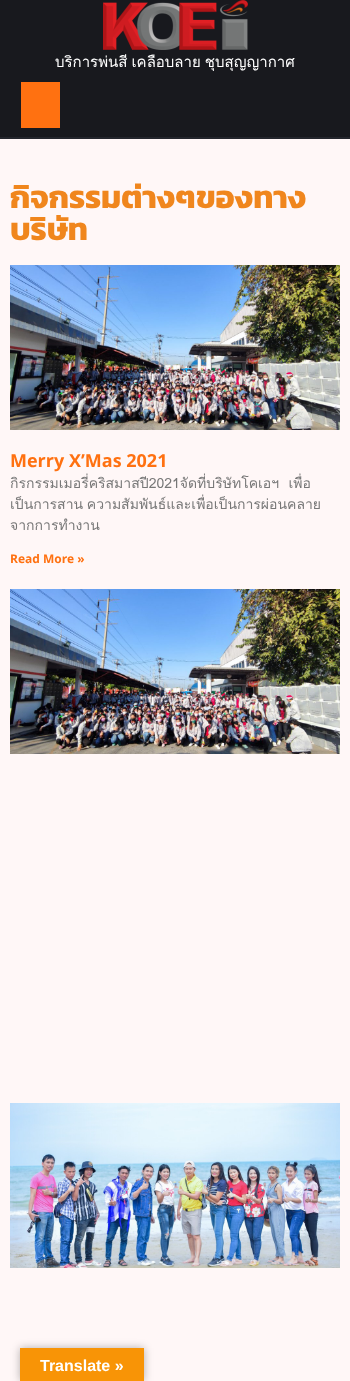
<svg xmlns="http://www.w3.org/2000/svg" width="350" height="1381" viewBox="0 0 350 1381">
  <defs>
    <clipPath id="clip1"><rect x="10" y="265" width="330" height="304"/></clipPath>
    <filter id="blur1" x="-50%" y="-200%" width="200%" height="500%"><feGaussianBlur stdDeviation="4.5"/></filter>
  </defs>
  <rect width="100%" height="100%" fill="#fff7f7"/>
  <rect x="0" y="0" width="350" height="137" fill="#18191e"/>
  <rect x="0" y="137" width="350" height="2" fill="#24262d"/>
  <image x="103" y="0" width="145" height="50" href="img1.png"/>
  <text x="55" y="67" word-spacing="-1" font-family="Loma" font-size="15" fill="#ffffff">บริการพ่นสี เคลือบลาย ชุบสุญญากาศ</text>
  <rect x="21" y="82" width="39" height="46" fill="#ff7111"/>
  <text x="10" y="208" font-family="Kanit" font-size="32" font-weight="bold" fill="#f0861d">กิจกรรมต่างๆของทาง</text>
  <text x="10" y="240" font-family="Kanit" font-size="32" font-weight="bold" fill="#f0861d">บริษัท</text>
  <image x="10" y="265" width="330" height="165" href="img2.png"/>
  <text x="10" y="467" font-family="Noto Sans" font-size="18" font-weight="bold" fill="#ff7111">Merry X’Mas 2021</text>
  <g clip-path="url(#clip1)">
    <text x="10" y="488" font-family="Loma" font-size="14" fill="#777777" xml:space="preserve">กิรกรรมเมอรี่คริสมาสปี2021จัดที่บริษัทโคเอฯ  เพื่อ</text>
    <text x="10" y="509" word-spacing="-1" font-family="Loma" font-size="14" fill="#777777">เป็นการสาน ความสัมพันธ์และเพื่อเป็นการผ่อนคลาย</text>
  </g>
  <text x="10" y="530" font-family="Loma" font-size="14" fill="#777777">จากการทำงาน</text>
  <text x="10" y="563" font-family="Noto Sans" font-size="12" font-weight="bold" fill="#ff7111">Read More »</text>
  <image x="10" y="589" width="330" height="165" href="img3.png"/>
  <image x="10" y="1103" width="330" height="165" href="img4.png"/>
  <rect x="20" y="1348" width="124" height="33" fill="#000000" fill-opacity="0.3" filter="url(#blur1)"/>
  <rect x="20" y="1348" width="124" height="33" fill="#f89406"/>
  <text x="40" y="1371" font-family="Liberation Sans" font-size="16" font-weight="bold" fill="#ffffff">Translate »</text>
</svg>
